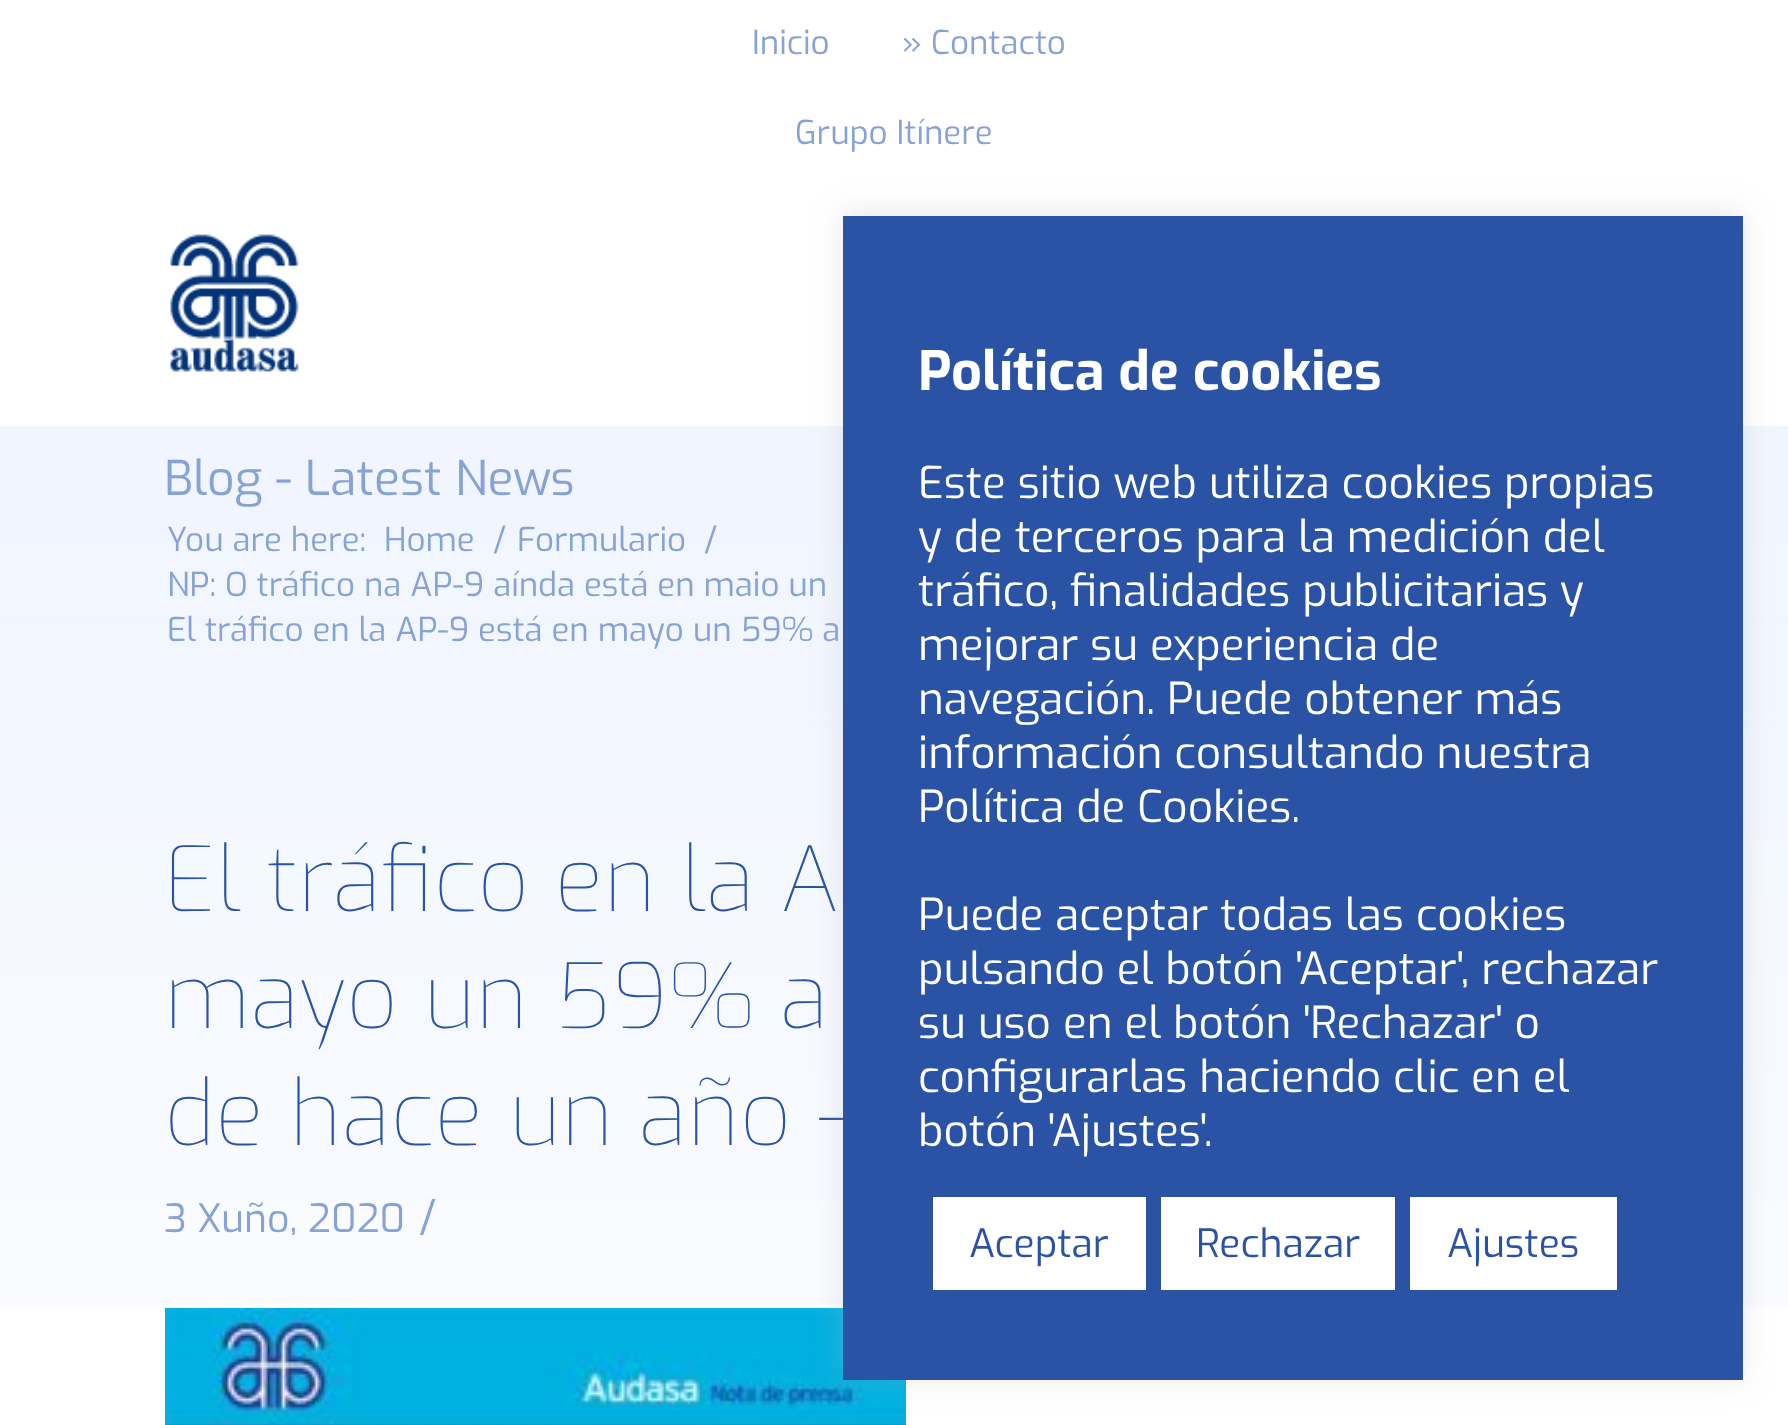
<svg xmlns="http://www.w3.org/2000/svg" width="1788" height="1425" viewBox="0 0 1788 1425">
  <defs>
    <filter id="blur1" x="-50%" y="-200%" width="200%" height="500%"><feGaussianBlur stdDeviation="15"/></filter>
  </defs>
  <rect width="100%" height="100%" fill="#ffffff"/>
  <text x="752" y="54" font-family="Exo" font-size="33" fill="#87a2d4">Inicio</text>
  <text x="902" y="54" font-family="Exo" font-size="33" fill="#87a2d4">» Contacto</text>
  <text x="795" y="144" font-family="Exo" font-size="33" fill="#87a2d4">Grupo Itínere</text>
  <image x="170" y="234" width="129" height="138" href="img1.png"/>
  <image x="0" y="426" width="1788" height="879" href="img2.png"/>
  <text x="164" y="495" font-family="Exo" font-size="48" fill="#87a2d4">Blog - Latest News</text>
  <text x="167" y="551" font-family="Exo" font-size="33" fill="#87a2d4">You are here:</text>
  <text x="384" y="551" font-family="Exo" font-size="33" fill="#87a2d4">Home</text>
  <text x="493" y="551" font-family="Exo" font-size="33" fill="#87a2d4">/</text>
  <text x="517" y="551" font-family="Exo" font-size="33" fill="#87a2d4">Formulario</text>
  <text x="704" y="551" font-family="Exo" font-size="33" fill="#87a2d4">/</text>
  <text x="167" y="596" font-family="Exo" font-size="33" fill="#87a2d4">NP: O tráfico na AP-9 aínda está en maio un</text>
  <text x="167" y="641" font-family="Exo" font-size="33" fill="#87a2d4">El tráfico en la AP-9 está en mayo un 59% a</text>
  <text x="164" y="911" font-family="Exo" font-size="90" font-weight="100" fill="#2a53a5">El tráfico en la A</text>
  <text x="164" y="1028" font-family="Exo" font-size="90" font-weight="100" fill="#2a53a5">mayo un 59% a</text>
  <text x="164" y="1145" font-family="Exo" font-size="90" font-weight="100" fill="#2a53a5">de hace un año –</text>
  <text x="164" y="1232" font-family="Exo" font-size="39" fill="#87a2d4">3 Xuño, 2020</text>
  <text x="419" y="1232" font-family="Exo" font-size="43" fill="#87a2d4">/</text>
  <image x="165" y="1308" width="741" height="117" href="img3.png"/>
  <rect x="843" y="213" width="900" height="1164" fill="#acabab" fill-opacity="0.3" filter="url(#blur1)"/>
  <rect x="843" y="216" width="900" height="1164" fill="#2a53a5"/>
  <text x="918" y="390" font-family="Exo" font-size="54" font-weight="bold" fill="#ffffff">Política de cookies</text>
  <text x="918" y="498" font-family="Exo" font-size="44" fill="#ffffff">Este sitio web utiliza cookies propias</text>
  <text x="918" y="552" font-family="Exo" font-size="44" fill="#ffffff">y de terceros para la medición del</text>
  <text x="918" y="606" font-family="Exo" font-size="44" fill="#ffffff">tráfico, finalidades publicitarias y</text>
  <text x="918" y="660" font-family="Exo" font-size="44" fill="#ffffff">mejorar su experiencia de</text>
  <text x="918" y="714" font-family="Exo" font-size="44" fill="#ffffff">navegación. Puede obtener más</text>
  <text x="918" y="768" font-family="Exo" font-size="44" fill="#ffffff">información consultando nuestra</text>
  <text x="918" y="822" font-family="Exo" font-size="44" fill="#ffffff">Política de Cookies.</text>
  <text x="918" y="930" font-family="Exo" font-size="44" fill="#ffffff">Puede aceptar todas las cookies</text>
  <text x="918" y="984" font-family="Exo" font-size="44" fill="#ffffff">pulsando el botón 'Aceptar', rechazar</text>
  <text x="918" y="1038" font-family="Exo" font-size="44" fill="#ffffff">su uso en el botón 'Rechazar' o</text>
  <text x="918" y="1092" font-family="Exo" font-size="44" fill="#ffffff">configurarlas haciendo clic en el</text>
  <text x="918" y="1146" font-family="Exo" font-size="44" fill="#ffffff">botón 'Ajustes'.</text>
  <rect x="933" y="1197" width="213" height="93" fill="#ffffff"/>
  <text x="969" y="1257" font-family="Exo" font-size="39" fill="#2a53a5">Aceptar</text>
  <rect x="1161" y="1197" width="234" height="93" fill="#ffffff"/>
  <text x="1196" y="1257" font-family="Exo" font-size="39" fill="#2a53a5">Rechazar</text>
  <rect x="1410" y="1197" width="207" height="93" fill="#ffffff"/>
  <text x="1447" y="1257" font-family="Exo" font-size="39" fill="#2a53a5">Ajustes</text>
</svg>
